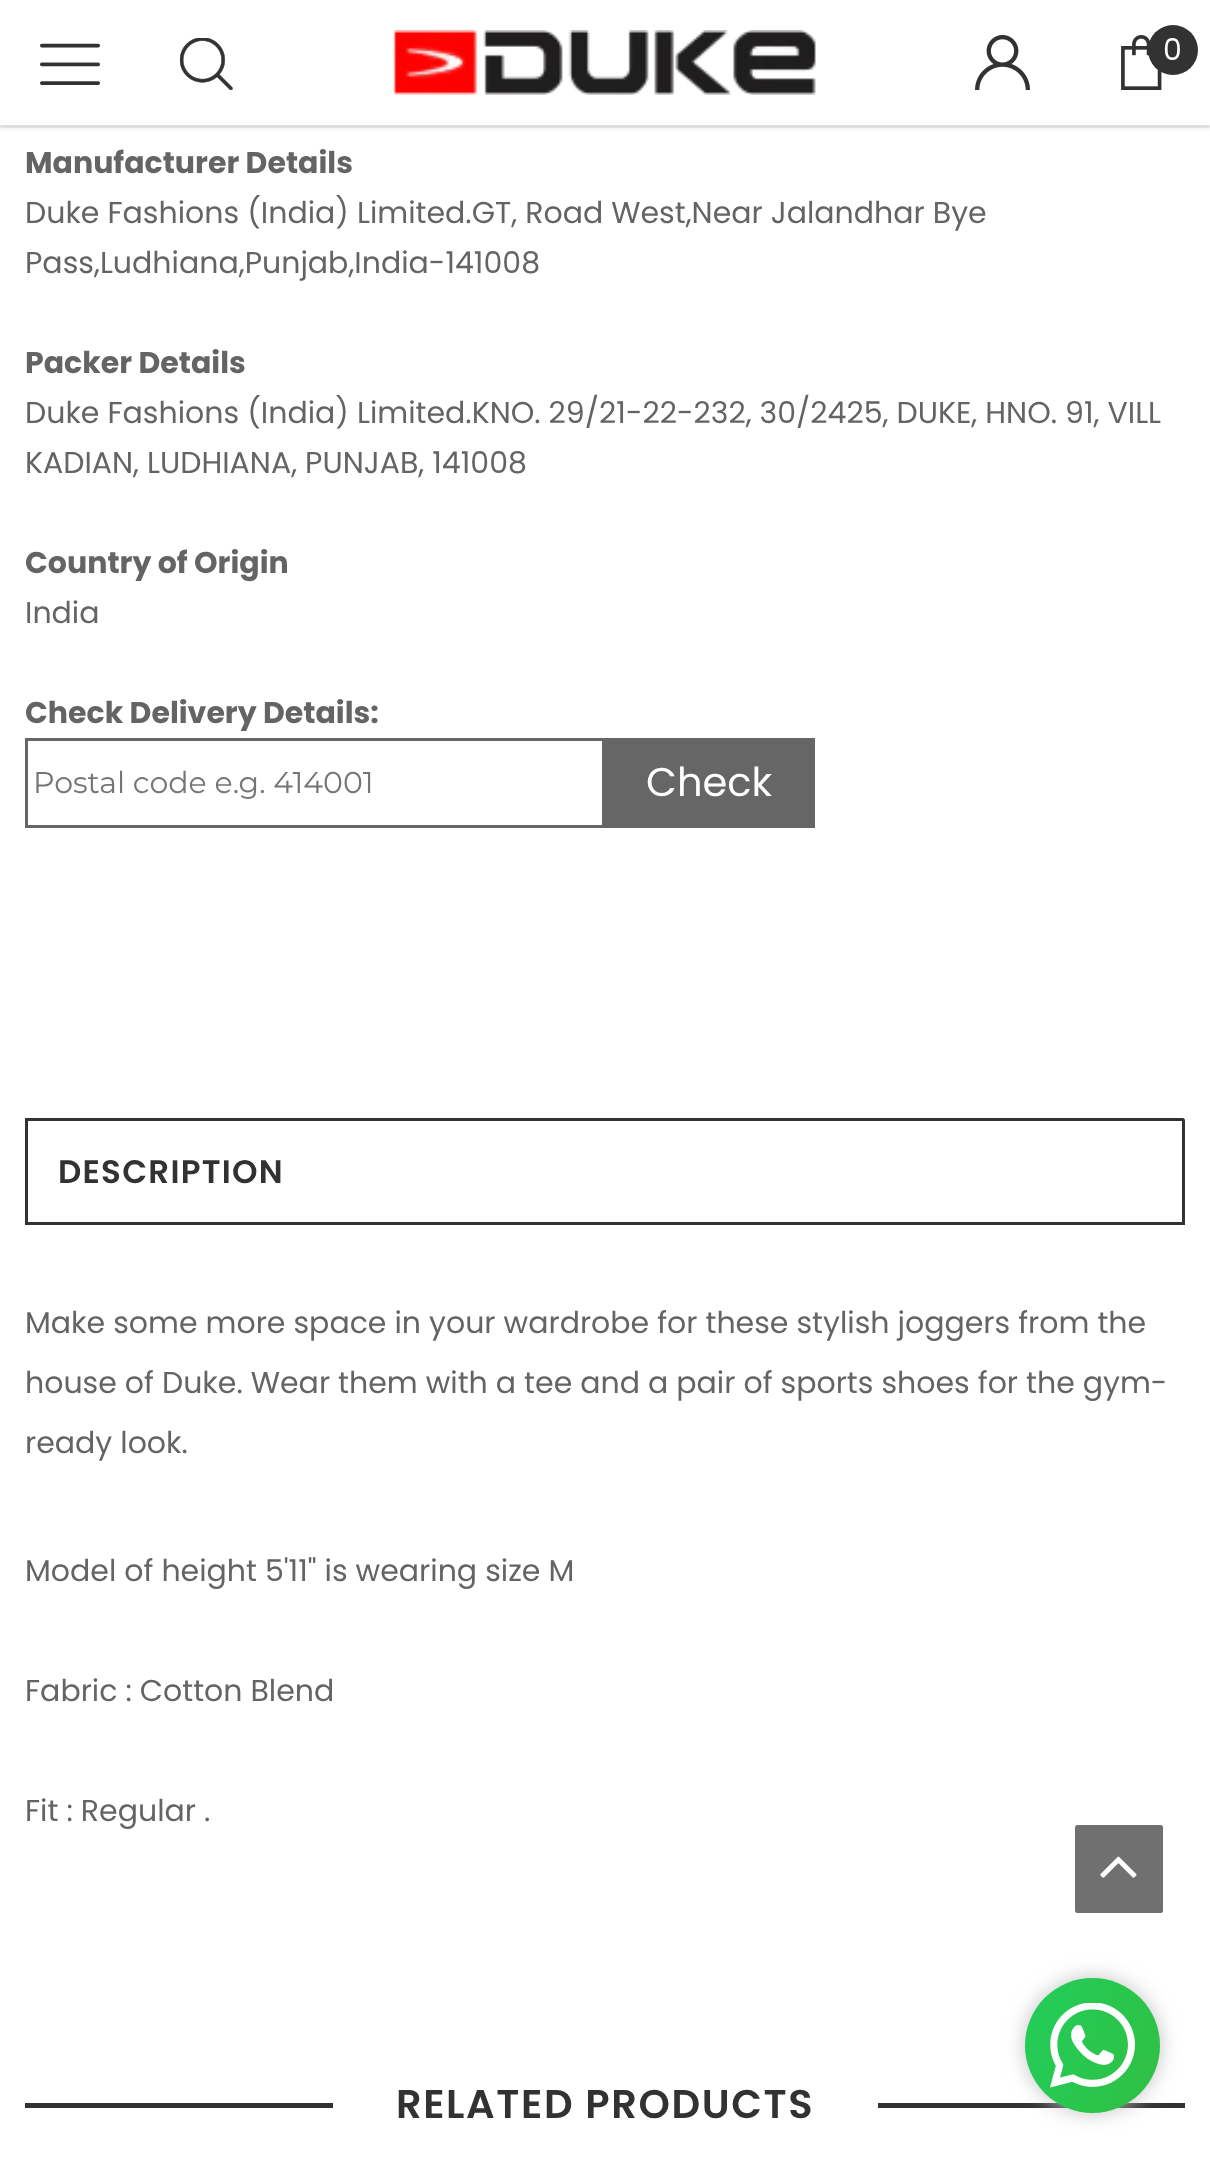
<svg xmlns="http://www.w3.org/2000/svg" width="1210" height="2161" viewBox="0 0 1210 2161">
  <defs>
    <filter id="blur1" x="-50%" y="-200%" width="200%" height="500%"><feGaussianBlur stdDeviation="2.5"/></filter>
    <filter id="blur2" x="-50%" y="-200%" width="200%" height="500%"><feGaussianBlur stdDeviation="10"/></filter>
    <linearGradient id="g1" gradientUnits="userSpaceOnUse" x1="1011" y1="2011" x2="1174" y2="2079"><stop offset="0" stop-color="#22ce5a"/><stop offset="0" stop-color="#22ce5a"/><stop offset="1" stop-color="#30bf42"/></linearGradient>
  </defs>
  <rect width="100%" height="100%" fill="#ffffff"/>
  <rect x="0" y="3" width="1210" height="125" fill="#000000" fill-opacity="0.1" filter="url(#blur1)"/>
  <rect x="-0.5" y="-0.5" width="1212" height="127" fill="none" stroke="#000000" stroke-opacity="0.06" stroke-width="3"/>
  <rect x="0" y="0" width="1210" height="125" fill="#ffffff"/>
  <image x="40" y="43" width="60" height="42" href="img1.png"/>
  <image x="180" y="38" width="53" height="52" href="img2.png"/>
  <image x="392" y="30" width="424" height="65" href="img3.png"/>
  <image x="975" y="35" width="55" height="55" href="img4.png"/>
  <image x="1121" y="35" width="41" height="55" href="img5.png"/>
  <circle cx="1173" cy="50" r="25" fill="#323232"/>
  <text x="1163" y="60" font-family="Poppins" font-size="30" fill="#ffffff">0</text>
  <text x="25" y="173" font-family="Poppins" font-size="30" font-weight="bold" fill="#646464">Manufacturer Details</text>
  <text x="25" y="223" font-family="Poppins" font-size="30" fill="#646464">Duke Fashions (India) Limited.GT, Road West,Near Jalandhar Bye</text>
  <text x="25" y="273" font-family="Poppins" font-size="30" fill="#646464">Pass,Ludhiana,Punjab,India-141008</text>
  <text x="25" y="373" font-family="Poppins" font-size="30" font-weight="bold" fill="#646464">Packer Details</text>
  <text x="25" y="423" font-family="Poppins" font-size="30" fill="#646464">Duke Fashions (India) Limited.KNO. 29/21-22-232, 30/2425, DUKE, HNO. 91, VILL</text>
  <text x="25" y="473" font-family="Poppins" font-size="30" fill="#646464">KADIAN, LUDHIANA, PUNJAB, 141008</text>
  <text x="25" y="573" font-family="Poppins" font-size="30" font-weight="bold" fill="#646464">Country of Origin</text>
  <text x="25" y="623" font-family="Poppins" font-size="30" fill="#646464">India</text>
  <text x="25" y="723" font-family="Poppins" font-size="30" font-weight="bold" fill="#646464">Check Delivery Details:</text>
  <rect x="26.5" y="739.5" width="577" height="87" fill="none" stroke="#666666" stroke-width="3"/>
  <text x="33" y="793" font-family="Montserrat" font-size="30" fill="#757575">Postal code e.g. 414001</text>
  <rect x="605" y="738" width="210" height="90" fill="#666666"/>
  <text x="646" y="796" font-family="Poppins" font-size="40" fill="#ffffff">Check</text>
  <path d="M26.5 1119.5H1182.5C1183 1119.5 1183.5 1120 1183.5 1120.5V1223.5H26.5Z" fill="none" stroke="#323232" stroke-width="3"/>
  <text x="58" y="1183" font-family="Poppins" font-size="32.5" font-weight="600" letter-spacing="1.25" fill="#323232">DESCRIPTION</text>
  <text x="25" y="1333" font-family="Poppins" font-size="30" fill="#646464">Make some more space in your wardrobe for these stylish joggers from the</text>
  <text x="25" y="1393" font-family="Poppins" font-size="30" fill="#646464">house of Duke. Wear them with a tee and a pair of sports shoes for the gym-</text>
  <text x="25" y="1453" font-family="Poppins" font-size="30" fill="#646464">ready look.</text>
  <text x="25" y="1581" font-family="Poppins" font-size="30" fill="#646464">Model of height 5'11" is wearing size M</text>
  <text x="25" y="1701" font-family="Poppins" font-size="30" fill="#646464">Fabric : Cotton Blend</text>
  <text x="25" y="1821" font-family="Poppins" font-size="30" fill="#646464">Fit : Regular .</text>
  <rect x="25" y="2103" width="308" height="5" fill="#323232"/>
  <text x="396" y="2118" font-family="Poppins" font-size="40" font-weight="600" letter-spacing="1.6" fill="#323232">RELATED PRODUCTS</text>
  <rect x="878" y="2103" width="307" height="5" fill="#323232"/>
  <rect x="1075" y="1825" width="88" height="88" rx="2.5" fill="#707070"/>
  <image x="1100" y="1856" width="37" height="22" href="img6.png"/>
  <rect x="1025" y="1978" width="135" height="135" rx="67.5" fill="#c2c2c2" filter="url(#blur2)"/>
  <circle cx="1092.5" cy="2045.5" r="67.5" fill="url(#g1)"/>
  <image x="1050" y="2003" width="85" height="85" href="img7.png"/>
</svg>
